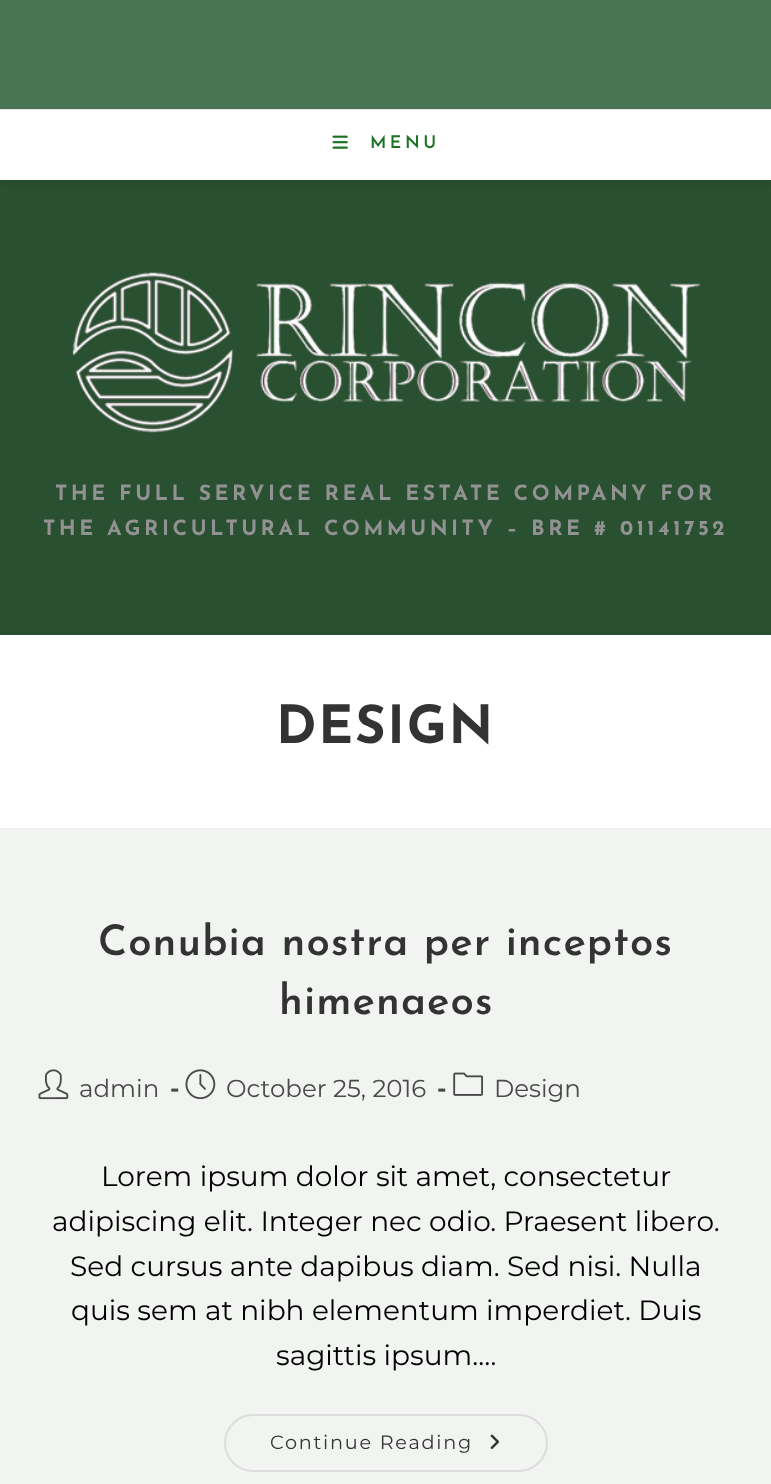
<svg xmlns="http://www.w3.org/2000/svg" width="771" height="1484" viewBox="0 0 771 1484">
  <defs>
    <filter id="blur1" x="-50%" y="-200%" width="200%" height="500%"><feGaussianBlur stdDeviation="4.5"/></filter>
  </defs>
  <rect width="100%" height="100%" fill="#f1f4f1"/>
  <rect x="0" y="0" width="771" height="109" fill="#497554"/>
  <rect x="0" y="109" width="771" height="1" fill="#eeeeee"/>
  <rect x="0" y="180" width="771" height="455" fill="#295030"/>
  <rect x="0" y="112" width="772" height="70" fill="#000000" fill-opacity="0.1" filter="url(#blur1)"/>
  <rect x="0" y="110" width="771" height="70" fill="#ffffff"/>
  <image x="332" y="135" width="16" height="14" href="img1.png"/>
  <text x="370" y="148" font-family="Josefin Sans" font-size="17.5" font-weight="600" letter-spacing="3.5" fill="#1c7223">MENU</text>
  <image x="72" y="272" width="629" height="161" href="img2.png"/>
  <text x="55" y="500" font-family="Josefin Sans" font-size="21" font-weight="bold" letter-spacing="3.5" fill="#929292">THE FULL SERVICE REAL ESTATE COMPANY FOR</text>
  <text x="43" y="535" font-family="Josefin Sans" font-size="21" font-weight="bold" letter-spacing="3.5" fill="#929292">THE AGRICULTURAL COMMUNITY – BRE # 01141752</text>
  <rect x="0" y="635" width="771" height="193" fill="#ffffff"/>
  <rect x="0" y="828" width="771" height="2" fill="#eeeeee"/>
  <text x="276" y="743" font-family="Josefin Sans" font-size="52.5" font-weight="bold" letter-spacing="1.75" fill="#333333">DESIGN</text>
  <text x="98" y="955" font-family="Josefin Sans" font-size="42" font-weight="600" letter-spacing="1.05" fill="#333333">Conubia nostra per inceptos</text>
  <text x="279" y="1014" font-family="Josefin Sans" font-size="42" font-weight="600" letter-spacing="1.05" fill="#333333">himenaeos</text>
  <image x="38" y="1069" width="31" height="31" href="img3.png"/>
  <text x="79" y="1097" font-family="Montserrat" font-size="24.5" fill="#4a4a4a">admin</text>
  <text x="170" y="1097" font-family="Montserrat" font-size="24.5" font-weight="bold" fill="#4a4a4a">-</text>
  <image x="185" y="1069" width="31" height="31" href="img4.png"/>
  <text x="226" y="1097" font-family="Montserrat" font-size="24.5" fill="#4a4a4a">October 25, 2016</text>
  <text x="437" y="1097" font-family="Montserrat" font-size="24.5" font-weight="bold" fill="#4a4a4a">-</text>
  <image x="453" y="1072" width="30" height="24" href="img5.png"/>
  <text x="494" y="1097" font-family="Montserrat" font-size="24.5" fill="#4a4a4a">Design</text>
  <text x="101" y="1186" font-family="Montserrat" font-size="28" fill="#000000">Lorem ipsum dolor sit amet, consectetur</text>
  <text x="52" y="1231" font-family="Montserrat" font-size="28" fill="#000000">adipiscing elit. Integer nec odio. Praesent libero.</text>
  <text x="70" y="1276" font-family="Montserrat" font-size="28" fill="#000000">Sed cursus ante dapibus diam. Sed nisi. Nulla</text>
  <text x="71" y="1320" font-family="Montserrat" font-size="28" fill="#000000">quis sem at nibh elementum imperdiet. Duis</text>
  <text x="276" y="1365" font-family="Montserrat" font-size="28" fill="#000000">sagittis ipsum.…</text>
  <rect x="225" y="1415" width="322" height="56" rx="28" fill="none" stroke="#dddddd" stroke-width="2"/>
  <text x="270" y="1449" font-family="Montserrat" font-size="19.25" letter-spacing="1.75" fill="#333333">Continue Reading</text>
  <image x="490" y="1434" width="10" height="15" href="img6.png"/>
</svg>
